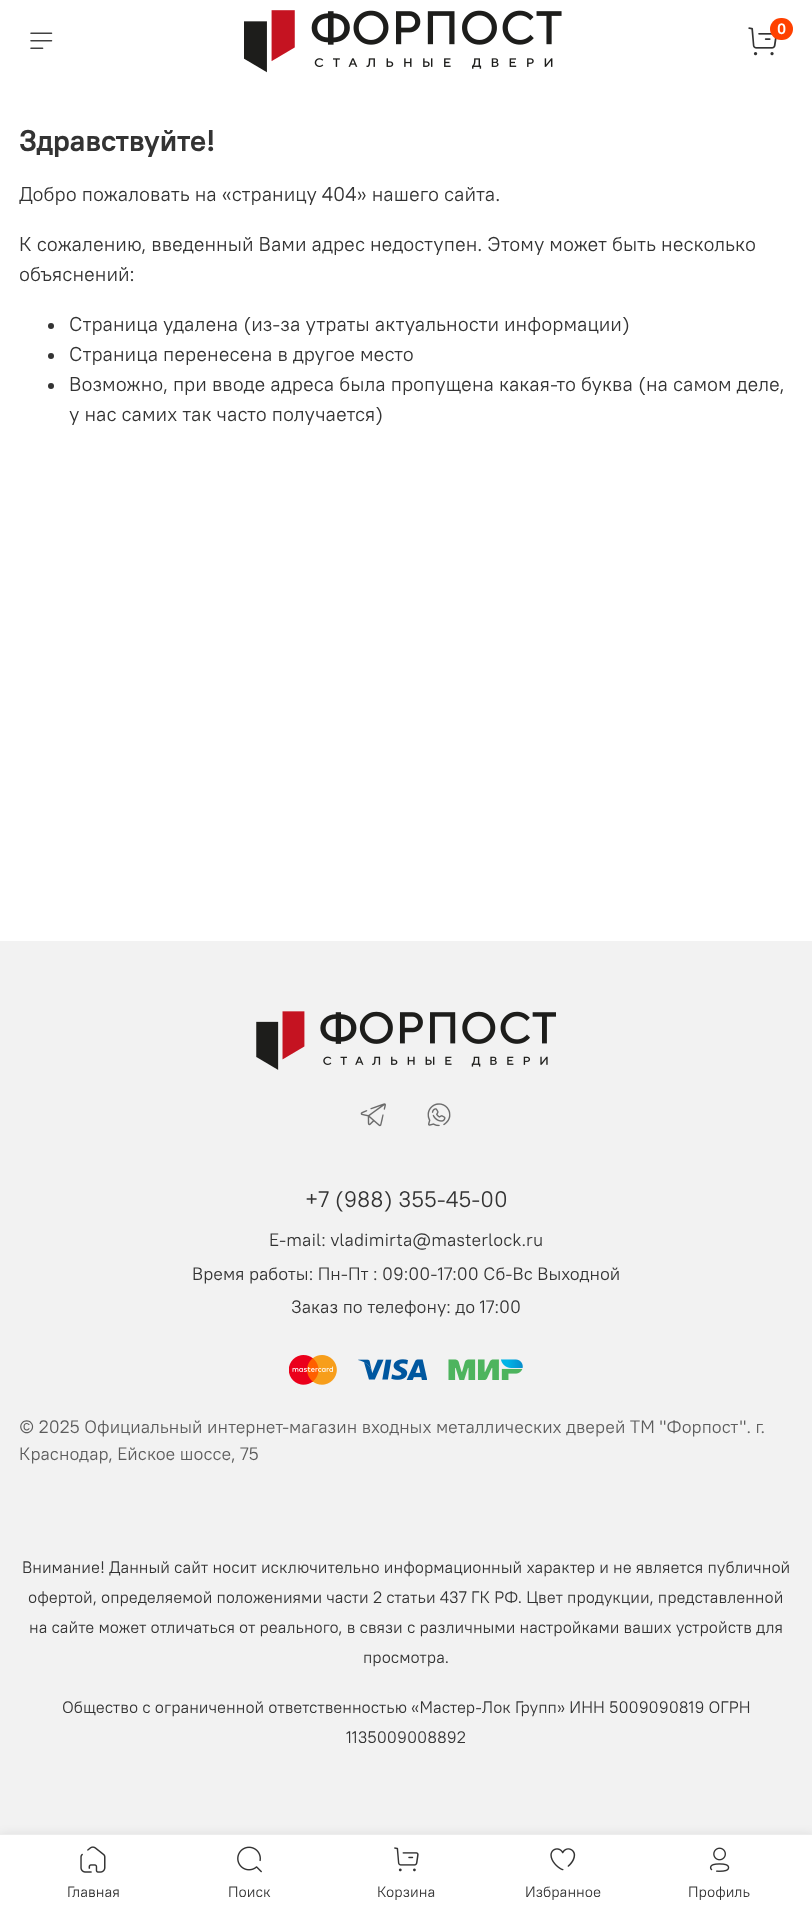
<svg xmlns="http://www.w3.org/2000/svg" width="812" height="1911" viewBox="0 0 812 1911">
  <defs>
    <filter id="blur1" x="-50%" y="-200%" width="200%" height="500%"><feGaussianBlur stdDeviation="6"/></filter>
  </defs>
  <rect width="100%" height="100%" fill="#ffffff"/>
  <image x="244" y="10" width="318" height="63" href="img1.png"/>
  <image x="748" y="27" width="29" height="29" href="img2.png"/>
  <rect x="770" y="18" width="23" height="22" rx="11" fill="#ff4100"/>
  <text x="777" y="34" font-family="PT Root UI" font-size="15" font-weight="bold" fill="#ffffff">0</text>
  <image x="30" y="32" width="23" height="17" href="img3.png"/>
  <text x="19" y="151" font-family="PT Root UI" font-size="30" font-weight="bold" fill="#333333">Здравствуйте!</text>
  <text x="19" y="201" font-family="PT Root UI" font-size="20" fill="#333333">Добро пожаловать на «страницу 404» нашего сайта.</text>
  <text x="19" y="251" font-family="PT Root UI" font-size="20" fill="#333333">К сожалению, введенный Вами адрес недоступен. Этому может быть несколько</text>
  <text x="19" y="281" font-family="PT Root UI" font-size="20" fill="#333333">объяснений:</text>
  <circle cx="51" cy="326" r="3" fill="#333333"/>
  <text x="69" y="331" font-family="PT Root UI" font-size="20" fill="#333333">Страница удалена (из-за утраты актуальности информации)</text>
  <circle cx="51" cy="356" r="3" fill="#333333"/>
  <text x="69" y="361" font-family="PT Root UI" font-size="20" fill="#333333">Страница перенесена в другое место</text>
  <circle cx="51" cy="386" r="3" fill="#333333"/>
  <text x="69" y="391" font-family="PT Root UI" font-size="20" fill="#333333">Возможно, при вводе адреса была пропущена какая-то буква (на самом деле,</text>
  <text x="69" y="421" font-family="PT Root UI" font-size="20" fill="#333333">у нас самих так часто получается)</text>
  <rect x="0" y="941" width="812" height="893" fill="#f2f2f2"/>
  <image x="256" y="1011" width="300" height="59" href="img4.png"/>
  <image x="360" y="1103" width="26" height="24" href="img5.png"/>
  <image x="427" y="1103" width="24" height="24" href="img6.png"/>
  <text x="305" y="1207" font-family="PT Root UI" font-size="22.5" fill="#333333">+7 (988) 355-45-00</text>
  <text x="269" y="1246" font-family="PT Root UI" font-size="18" fill="#333333">E-mail: vladimirta@masterlock.ru</text>
  <text x="192" y="1280" font-family="PT Root UI" font-size="18" fill="#333333">Время работы: Пн-Пт : 09:00-17:00 Сб-Вс Выходной</text>
  <text x="291" y="1313" font-family="PT Root UI" font-size="18" fill="#333333">Заказ по телефону: до 17:00</text>
  <image x="289" y="1355" width="48" height="30" href="img7.png"/>
  <image x="358" y="1359" width="69" height="21" href="img8.png"/>
  <image x="448" y="1359" width="75" height="21" href="img9.png"/>
  <text x="19" y="1433" font-family="PT Root UI" font-size="18" fill="#5c5c5c">© 2025 Официальный интернет-магазин входных металлических дверей ТМ "Форпост". г.</text>
  <text x="19" y="1460" font-family="PT Root UI" font-size="18" fill="#5c5c5c">Краснодар, Ейское шоссе, 75</text>
  <text x="22" y="1573" font-family="PT Root UI" font-size="16.65" fill="#333333">Внимание! Данный сайт носит исключительно информационный характер и не является публичной</text>
  <text x="28" y="1603" font-family="PT Root UI" font-size="16.65" fill="#333333">офертой, определяемой положениями части 2 статьи 437 ГК РФ. Цвет продукции, представленной</text>
  <text x="29" y="1633" font-family="PT Root UI" font-size="16.65" fill="#333333">на сайте может отличаться от реального, в связи с различными настройками ваших устройств для</text>
  <text x="363" y="1663" font-family="PT Root UI" font-size="16.65" fill="#333333">просмотра.</text>
  <text x="62" y="1713" font-family="PT Root UI" font-size="16.65" fill="#333333">Общество с ограниченной ответственностью «Мастер-Лок Групп» ИНН 5009090819 ОГРН</text>
  <text x="346" y="1743" font-family="PT Root UI" font-size="16.65" fill="#333333">1135009008892</text>
  <rect x="0" y="1836" width="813" height="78" fill="#000000" fill-opacity="0.12" filter="url(#blur1)"/>
  <rect x="0" y="1835" width="812" height="76" fill="#ffffff"/>
  <rect x="0" y="1834" width="812" height="1" fill="#ededed"/>
  <image x="80" y="1846" width="26" height="27" href="img10.png"/>
  <text x="67" y="1897" font-family="PT Root UI" font-size="15" fill="#333333">Главная</text>
  <image x="237" y="1846" width="25" height="27" href="img11.png"/>
  <text x="228" y="1897" font-family="PT Root UI" font-size="15" fill="#333333">Поиск</text>
  <image x="394" y="1847" width="25" height="25" href="img12.png"/>
  <text x="377" y="1897" font-family="PT Root UI" font-size="15" fill="#333333">Корзина</text>
  <image x="550" y="1848" width="26" height="23" href="img13.png"/>
  <text x="525" y="1897" font-family="PT Root UI" font-size="15" fill="#333333">Избранное</text>
  <image x="709" y="1847" width="21" height="25" href="img14.png"/>
  <text x="688" y="1897" font-family="PT Root UI" font-size="15" fill="#333333">Профиль</text>
</svg>
